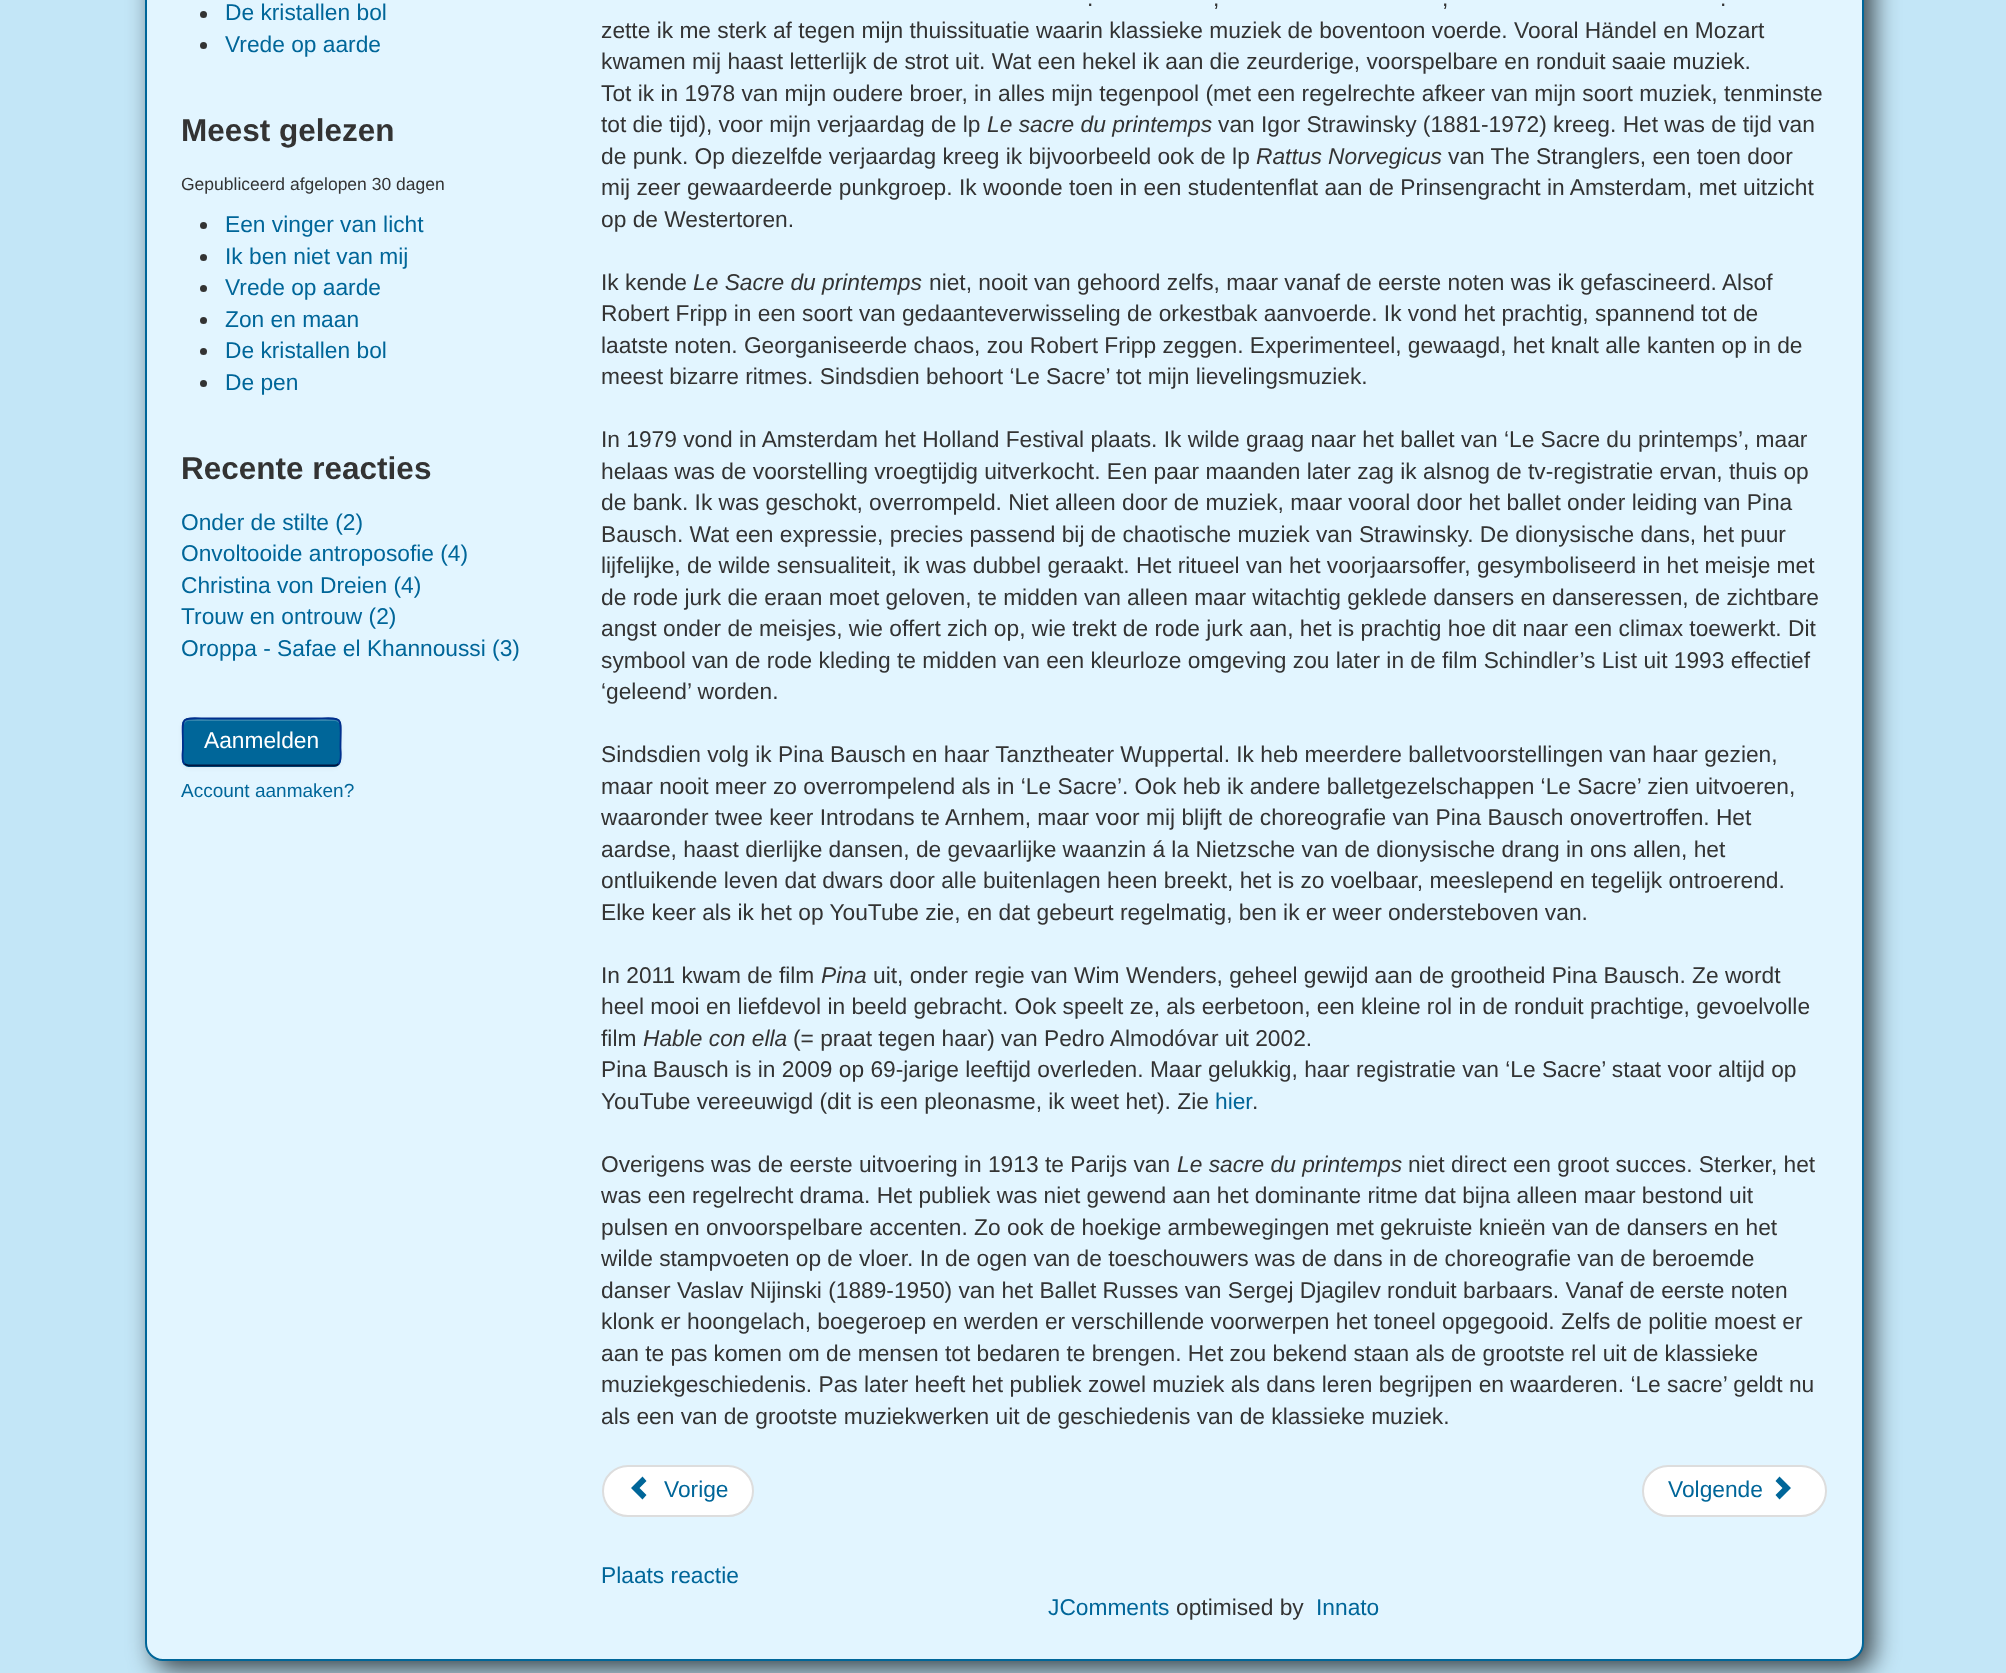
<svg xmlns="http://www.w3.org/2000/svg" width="2006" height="1673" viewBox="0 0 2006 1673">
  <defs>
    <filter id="blur1" x="-50%" y="-200%" width="200%" height="500%"><feGaussianBlur stdDeviation="13"/></filter>
    <filter id="blur2" x="-50%" y="-200%" width="200%" height="500%"><feGaussianBlur stdDeviation="2"/></filter>
  </defs>
  <rect width="100%" height="100%" fill="#c3e6f7"/>
  <rect x="154" y="-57" width="1719" height="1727" rx="18" fill="#000000" fill-opacity="0.7" filter="url(#blur1)"/>
  <rect x="146" y="-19" width="1717" height="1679" rx="17" fill="#e2f5ff" stroke="#006699" stroke-width="2"/>
  <circle cx="203.5" cy="14.5" r="3.5" fill="#333333"/>
  <text x="225" y="20" font-family="Liberation Sans" font-size="22.75" fill="#006699">De kristallen bol</text>
  <circle cx="203.5" cy="45.5" r="3.5" fill="#333333"/>
  <text x="225" y="52" font-family="Liberation Sans" font-size="22.75" fill="#006699">Vrede op aarde</text>
  <text x="181" y="141" font-family="Liberation Sans" font-size="31.5" font-weight="bold" fill="#333333">Meest gelezen</text>
  <text x="181" y="190" font-family="Liberation Sans" font-size="17.5" fill="#333333">Gepubliceerd afgelopen 30 dagen</text>
  <circle cx="203.5" cy="225.5" r="3.5" fill="#333333"/>
  <text x="225" y="232" font-family="Liberation Sans" font-size="22.75" fill="#006699">Een vinger van licht</text>
  <circle cx="203.5" cy="257.5" r="3.5" fill="#333333"/>
  <text x="225" y="264" font-family="Liberation Sans" font-size="22.75" fill="#006699">Ik ben niet van mij</text>
  <circle cx="203.5" cy="288.5" r="3.5" fill="#333333"/>
  <text x="225" y="295" font-family="Liberation Sans" font-size="22.75" fill="#006699">Vrede op aarde</text>
  <circle cx="203.5" cy="320.5" r="3.5" fill="#333333"/>
  <text x="225" y="327" font-family="Liberation Sans" font-size="22.75" fill="#006699">Zon en maan</text>
  <circle cx="203.5" cy="351.5" r="3.5" fill="#333333"/>
  <text x="225" y="358" font-family="Liberation Sans" font-size="22.75" fill="#006699">De kristallen bol</text>
  <circle cx="203.5" cy="383.5" r="3.5" fill="#333333"/>
  <text x="225" y="390" font-family="Liberation Sans" font-size="22.75" fill="#006699">De pen</text>
  <text x="181" y="479" font-family="Liberation Sans" font-size="31.5" font-weight="bold" fill="#333333">Recente reacties</text>
  <text x="181" y="530" font-family="Liberation Sans" font-size="22.75" fill="#006699">Onder de stilte (2)</text>
  <text x="181" y="561" font-family="Liberation Sans" font-size="22.75" fill="#006699">Onvoltooide antroposofie (4)</text>
  <text x="181" y="593" font-family="Liberation Sans" font-size="22.75" fill="#006699">Christina von Dreien (4)</text>
  <text x="181" y="624" font-family="Liberation Sans" font-size="22.75" fill="#006699">Trouw en ontrouw (2)</text>
  <text x="181" y="656" font-family="Liberation Sans" font-size="22.75" fill="#006699">Oroppa - Safae el Khannoussi (3)</text>
  <rect x="182" y="719" width="159" height="49" rx="7" fill="#000000" fill-opacity="0.05" filter="url(#blur2)"/>
  <rect x="182" y="718" width="159" height="49" rx="7" fill="#006699"/>
  <path d="M189 721H334C337 721 340 723 340 726V724C340 721 338 719 335 719H189C186 719 184 721 184 724V726C184 723 186 721 189 721Z" fill="#3385ad"/>
  <path d="M338.5 764C337.5 765 336.5 765.5 335 765.5H188.5L184.5 764" fill="none" stroke="#001641" stroke-width="1.8"/>
  <path d="M184.5 764C181 760.5 183 751.5 183 748C183 713.5 177 718.5 213 718.5H310C346 718.5 340.5 713.5 340.5 748C340.5 751.5 342 760.5 338.5 764" fill="none" stroke="#002f8d" stroke-width="1.8"/>
  <text x="204" y="748" font-family="Liberation Sans" font-size="22.75" fill="#ffffff">Aanmelden</text>
  <text x="181" y="797" font-family="Liberation Sans" font-size="19" fill="#006699">Account aanmaken?</text>
  <text x="1087" y="6" font-family="Liberation Sans" font-size="22.75" fill="#333333">.</text>
  <text x="1213" y="6" font-family="Liberation Sans" font-size="22.75" fill="#333333">,</text>
  <text x="1442" y="6" font-family="Liberation Sans" font-size="22.75" fill="#333333">,</text>
  <text x="1720" y="6" font-family="Liberation Sans" font-size="22.75" fill="#333333">.</text>
  <text x="601" y="38" font-family="Liberation Sans" font-size="22.75" fill="#333333">zette ik me sterk af tegen mijn thuissituatie waarin klassieke muziek de boventoon voerde. Vooral Händel en Mozart</text>
  <text x="601" y="69" font-family="Liberation Sans" font-size="22.75" fill="#333333">kwamen mij haast letterlijk de strot uit. Wat een hekel ik aan die zeurderige, voorspelbare en ronduit saaie muziek.</text>
  <text x="601" y="101" font-family="Liberation Sans" font-size="22.75" fill="#333333">Tot ik in 1978 van mijn oudere broer, in alles mijn tegenpool (met een regelrechte afkeer van mijn soort muziek, tenminste</text>
  <text x="601" y="132" font-family="Liberation Sans" font-size="22.75" fill="#333333">tot die tijd), voor mijn verjaardag de lp</text>
  <text x="987" y="132" font-family="Liberation Sans" font-size="22.75" font-style="italic" fill="#333333">Le sacre du printemps</text>
  <text x="1218" y="132" font-family="Liberation Sans" font-size="22.75" fill="#333333">van Igor Strawinsky (1881-1972) kreeg. Het was de tijd van</text>
  <text x="601" y="164" font-family="Liberation Sans" font-size="22.75" fill="#333333">de punk. Op diezelfde verjaardag kreeg ik bijvoorbeeld ook de lp</text>
  <text x="1256" y="164" font-family="Liberation Sans" font-size="22.75" font-style="italic" fill="#333333">Rattus Norvegicus</text>
  <text x="1448" y="164" font-family="Liberation Sans" font-size="22.75" fill="#333333">van The Stranglers, een toen door</text>
  <text x="601" y="195" font-family="Liberation Sans" font-size="22.75" fill="#333333">mij zeer gewaardeerde punkgroep. Ik woonde toen in een studentenflat aan de Prinsengracht in Amsterdam, met uitzicht</text>
  <text x="601" y="227" font-family="Liberation Sans" font-size="22.75" fill="#333333">op de Westertoren.</text>
  <text x="601" y="290" font-family="Liberation Sans" font-size="22.75" fill="#333333">Ik kende</text>
  <text x="693" y="290" font-family="Liberation Sans" font-size="22.75" font-style="italic" fill="#333333">Le Sacre du printemps</text>
  <text x="929" y="290" font-family="Liberation Sans" font-size="22.75" fill="#333333">niet, nooit van gehoord zelfs, maar vanaf de eerste noten was ik gefascineerd. Alsof</text>
  <text x="601" y="321" font-family="Liberation Sans" font-size="22.75" fill="#333333">Robert Fripp in een soort van gedaanteverwisseling de orkestbak aanvoerde. Ik vond het prachtig, spannend tot de</text>
  <text x="601" y="353" font-family="Liberation Sans" font-size="22.75" fill="#333333">laatste noten. Georganiseerde chaos, zou Robert Fripp zeggen. Experimenteel, gewaagd, het knalt alle kanten op in de</text>
  <text x="601" y="384" font-family="Liberation Sans" font-size="22.75" fill="#333333">meest bizarre ritmes. Sindsdien behoort ‘Le Sacre’ tot mijn lievelingsmuziek.</text>
  <text x="601" y="447" font-family="Liberation Sans" font-size="22.75" fill="#333333">In 1979 vond in Amsterdam het Holland Festival plaats. Ik wilde graag naar het ballet van ‘Le Sacre du printemps’, maar</text>
  <text x="601" y="479" font-family="Liberation Sans" font-size="22.75" fill="#333333">helaas was de voorstelling vroegtijdig uitverkocht. Een paar maanden later zag ik alsnog de tv-registratie ervan, thuis op</text>
  <text x="601" y="510" font-family="Liberation Sans" font-size="22.75" fill="#333333">de bank. Ik was geschokt, overrompeld. Niet alleen door de muziek, maar vooral door het ballet onder leiding van Pina</text>
  <text x="601" y="542" font-family="Liberation Sans" font-size="22.75" fill="#333333">Bausch. Wat een expressie, precies passend bij de chaotische muziek van Strawinsky. De dionysische dans, het puur</text>
  <text x="601" y="573" font-family="Liberation Sans" font-size="22.75" fill="#333333">lijfelijke, de wilde sensualiteit, ik was dubbel geraakt. Het ritueel van het voorjaarsoffer, gesymboliseerd in het meisje met</text>
  <text x="601" y="605" font-family="Liberation Sans" font-size="22.75" fill="#333333">de rode jurk die eraan moet geloven, te midden van alleen maar witachtig geklede dansers en danseressen, de zichtbare</text>
  <text x="601" y="636" font-family="Liberation Sans" font-size="22.75" fill="#333333">angst onder de meisjes, wie offert zich op, wie trekt de rode jurk aan, het is prachtig hoe dit naar een climax toewerkt. Dit</text>
  <text x="601" y="668" font-family="Liberation Sans" font-size="22.75" fill="#333333">symbool van de rode kleding te midden van een kleurloze omgeving zou later in de film Schindler’s List uit 1993 effectief</text>
  <text x="601" y="699" font-family="Liberation Sans" font-size="22.75" fill="#333333">‘geleend’ worden.</text>
  <text x="601" y="762" font-family="Liberation Sans" font-size="22.75" fill="#333333">Sindsdien volg ik Pina Bausch en haar Tanztheater Wuppertal. Ik heb meerdere balletvoorstellingen van haar gezien,</text>
  <text x="601" y="794" font-family="Liberation Sans" font-size="22.75" fill="#333333">maar nooit meer zo overrompelend als in ‘Le Sacre’. Ook heb ik andere balletgezelschappen ‘Le Sacre’ zien uitvoeren,</text>
  <text x="601" y="825" font-family="Liberation Sans" font-size="22.75" fill="#333333">waaronder twee keer Introdans te Arnhem, maar voor mij blijft de choreografie van Pina Bausch onovertroffen. Het</text>
  <text x="601" y="857" font-family="Liberation Sans" font-size="22.75" fill="#333333">aardse, haast dierlijke dansen, de gevaarlijke waanzin á la Nietzsche van de dionysische drang in ons allen, het</text>
  <text x="601" y="888" font-family="Liberation Sans" font-size="22.75" fill="#333333">ontluikende leven dat dwars door alle buitenlagen heen breekt, het is zo voelbaar, meeslepend en tegelijk ontroerend.</text>
  <text x="601" y="920" font-family="Liberation Sans" font-size="22.75" fill="#333333">Elke keer als ik het op YouTube zie, en dat gebeurt regelmatig, ben ik er weer ondersteboven van.</text>
  <text x="601" y="983" font-family="Liberation Sans" font-size="22.75" fill="#333333">In 2011 kwam de film</text>
  <text x="821" y="983" font-family="Liberation Sans" font-size="22.75" font-style="italic" fill="#333333">Pina</text>
  <text x="873" y="983" font-family="Liberation Sans" font-size="22.75" fill="#333333">uit, onder regie van Wim Wenders, geheel gewijd aan de grootheid Pina Bausch. Ze wordt</text>
  <text x="601" y="1014" font-family="Liberation Sans" font-size="22.75" fill="#333333">heel mooi en liefdevol in beeld gebracht. Ook speelt ze, als eerbetoon, een kleine rol in de ronduit prachtige, gevoelvolle</text>
  <text x="601" y="1046" font-family="Liberation Sans" font-size="22.75" fill="#333333">film</text>
  <text x="643" y="1046" font-family="Liberation Sans" font-size="22.75" font-style="italic" fill="#333333">Hable con ella</text>
  <text x="793" y="1046" font-family="Liberation Sans" font-size="22.75" fill="#333333">(= praat tegen haar) van Pedro Almodóvar uit 2002.</text>
  <text x="601" y="1077" font-family="Liberation Sans" font-size="22.75" fill="#333333">Pina Bausch is in 2009 op 69-jarige leeftijd overleden. Maar gelukkig, haar registratie van ‘Le Sacre’ staat voor altijd op</text>
  <text x="601" y="1109" font-family="Liberation Sans" font-size="22.75" fill="#333333">YouTube vereeuwigd (dit is een pleonasme, ik weet het). Zie</text>
  <text x="1215" y="1109" font-family="Liberation Sans" font-size="22.75" fill="#006699">hier</text>
  <text x="1252" y="1109" font-family="Liberation Sans" font-size="22.75" fill="#333333">.</text>
  <text x="601" y="1172" font-family="Liberation Sans" font-size="22.75" fill="#333333">Overigens was de eerste uitvoering in 1913 te Parijs van</text>
  <text x="1177" y="1172" font-family="Liberation Sans" font-size="22.75" font-style="italic" fill="#333333">Le sacre du printemps</text>
  <text x="1408" y="1172" font-family="Liberation Sans" font-size="22.75" fill="#333333">niet direct een groot succes. Sterker, het</text>
  <text x="601" y="1203" font-family="Liberation Sans" font-size="22.75" fill="#333333">was een regelrecht drama. Het publiek was niet gewend aan het dominante ritme dat bijna alleen maar bestond uit</text>
  <text x="601" y="1235" font-family="Liberation Sans" font-size="22.75" fill="#333333">pulsen en onvoorspelbare accenten. Zo ook de hoekige armbewegingen met gekruiste knieën van de dansers en het</text>
  <text x="601" y="1266" font-family="Liberation Sans" font-size="22.75" fill="#333333">wilde stampvoeten op de vloer. In de ogen van de toeschouwers was de dans in de choreografie van de beroemde</text>
  <text x="601" y="1298" font-family="Liberation Sans" font-size="22.75" fill="#333333">danser Vaslav Nijinski (1889-1950) van het Ballet Russes van Sergej Djagilev ronduit barbaars. Vanaf de eerste noten</text>
  <text x="601" y="1329" font-family="Liberation Sans" font-size="22.75" fill="#333333">klonk er hoongelach, boegeroep en werden er verschillende voorwerpen het toneel opgegooid. Zelfs de politie moest er</text>
  <text x="601" y="1361" font-family="Liberation Sans" font-size="22.75" fill="#333333">aan te pas komen om de mensen tot bedaren te brengen. Het zou bekend staan als de grootste rel uit de klassieke</text>
  <text x="601" y="1392" font-family="Liberation Sans" font-size="22.75" fill="#333333">muziekgeschiedenis. Pas later heeft het publiek zowel muziek als dans leren begrijpen en waarderen. ‘Le sacre’ geldt nu</text>
  <text x="601" y="1424" font-family="Liberation Sans" font-size="22.75" fill="#333333">als een van de grootste muziekwerken uit de geschiedenis van de klassieke muziek.</text>
  <rect x="603" y="1466" width="150" height="50" rx="25" fill="#ffffff" stroke="#dddddd" stroke-width="2"/>
  <path d="M642.5 1499.5L631 1488L642.5 1476.5L646.5 1481L639.5 1488L646.5 1495Z" fill="#006699"/>
  <text x="664" y="1497" font-family="Liberation Sans" font-size="22.75" fill="#006699">Vorige</text>
  <rect x="1643" y="1466" width="183" height="50" rx="25" fill="#ffffff" stroke="#dddddd" stroke-width="2"/>
  <text x="1668" y="1497" font-family="Liberation Sans" font-size="22.75" fill="#006699">Volgende</text>
  <path d="M1779.5 1476.5L1791 1488L1779.5 1499.5L1775.5 1495L1782.5 1488L1775.5 1481Z" fill="#006699"/>
  <text x="601" y="1583" font-family="Liberation Sans" font-size="22.75" fill="#006699">Plaats reactie</text>
  <text x="1048" y="1615" font-family="Liberation Sans" font-size="22.75" fill="#006699">JComments</text>
  <text x="1176" y="1615" font-family="Liberation Sans" font-size="22.75" fill="#333333">optimised by</text>
  <text x="1316" y="1615" font-family="Liberation Sans" font-size="22.75" fill="#006699">Innato</text>
</svg>
